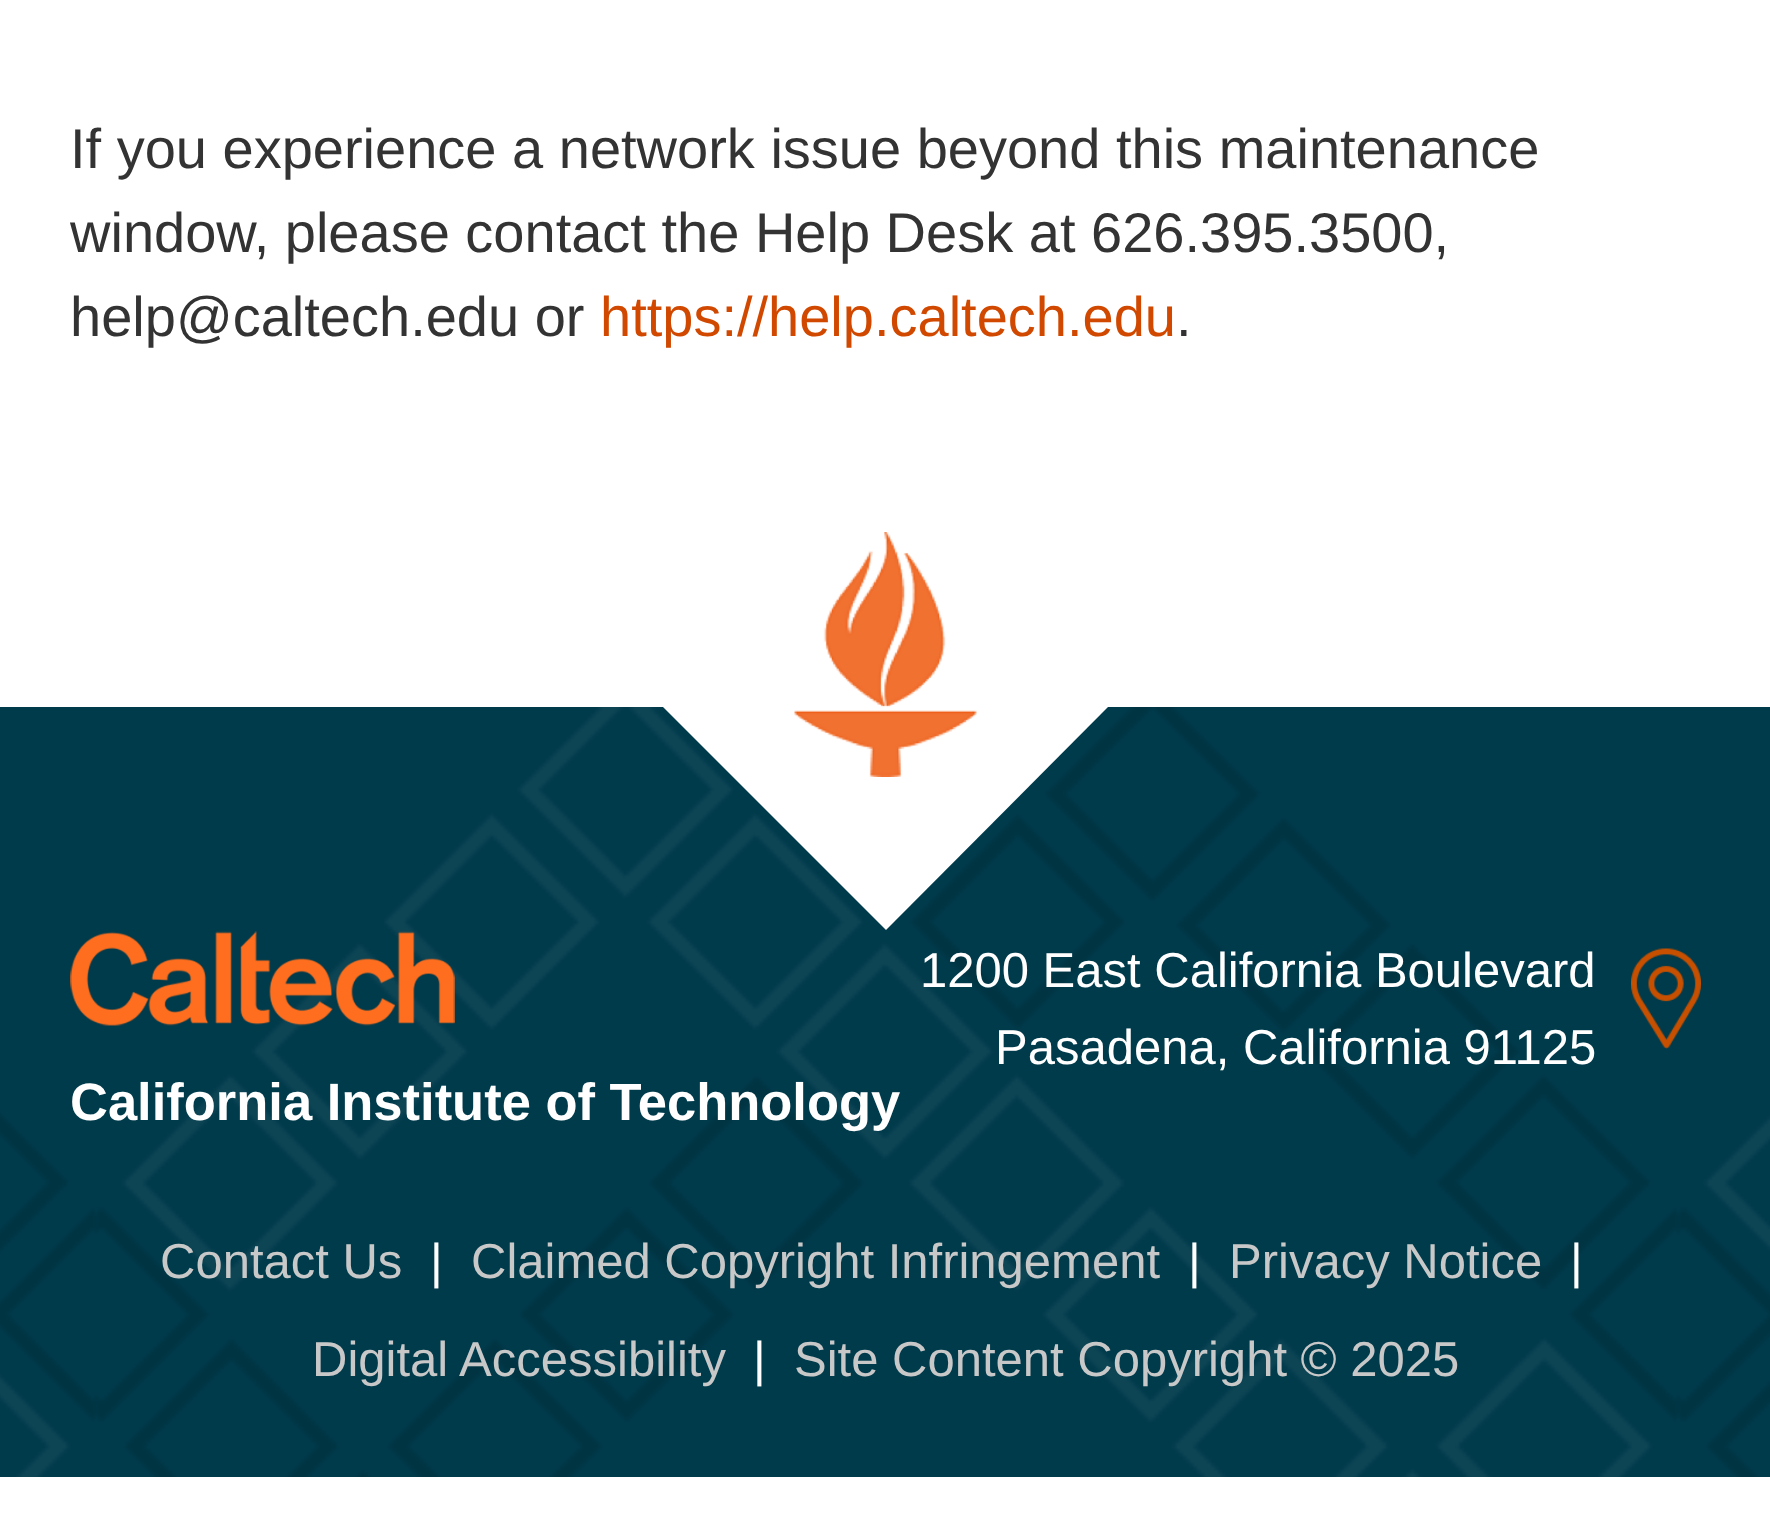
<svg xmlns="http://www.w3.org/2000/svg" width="1770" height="1515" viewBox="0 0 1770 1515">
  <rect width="100%" height="100%" fill="#ffffff"/>
  <text x="70" y="168" font-family="Liberation Sans" font-size="56" fill="#333333">If you experience a network issue beyond this maintenance</text>
  <text x="70" y="252" font-family="Liberation Sans" font-size="56" fill="#333333">window, please contact the Help Desk at 626.395.3500,</text>
  <text x="70" y="336" font-family="Liberation Sans" font-size="56" fill="#333333">help@caltech.edu or</text>
  <text x="600" y="336" font-family="Liberation Sans" font-size="56" fill="#d14900">https://help.caltech.edu</text>
  <text x="1176" y="336" font-family="Liberation Sans" font-size="56" fill="#333333">.</text>
  <rect x="0" y="707" width="1770" height="770" fill="#003b4c"/>
  <image x="0" y="707" width="1770" height="770" href="img1.png"/>
  <path d="M885 484L1108 707L886 930L663 707Z" fill="#ffffff"/>
  <image x="794" y="532" width="183" height="245" href="img2.png"/>
  <text x="920" y="987" font-family="Liberation Sans" font-size="49" fill="#ffffff">1200 East California Boulevard</text>
  <image x="1631" y="948" width="70" height="101" href="img3.png"/>
  <text x="995" y="1064" font-family="Liberation Sans" font-size="49" fill="#ffffff">Pasadena, California 91125</text>
  <image x="70" y="931" width="385" height="95" href="img4.png"/>
  <text x="70" y="1120" font-family="Liberation Sans" font-size="52.5" font-weight="bold" fill="#ffffff">California Institute of Technology</text>
  <text x="160" y="1278" font-family="Liberation Sans" font-size="49" fill="#c8c8c8">Contact Us</text>
  <text x="430" y="1278" font-family="Liberation Sans" font-size="49" fill="#ffffff">|</text>
  <text x="471" y="1278" font-family="Liberation Sans" font-size="49" fill="#c8c8c8">Claimed Copyright Infringement</text>
  <text x="1188" y="1278" font-family="Liberation Sans" font-size="49" fill="#ffffff">|</text>
  <text x="1229" y="1278" font-family="Liberation Sans" font-size="49" fill="#c8c8c8">Privacy Notice</text>
  <text x="1570" y="1278" font-family="Liberation Sans" font-size="49" fill="#ffffff">|</text>
  <text x="312" y="1376" font-family="Liberation Sans" font-size="49" fill="#c8c8c8">Digital Accessibility</text>
  <text x="753" y="1376" font-family="Liberation Sans" font-size="49" fill="#ffffff">|</text>
  <text x="794" y="1376" font-family="Liberation Sans" font-size="49" fill="#c8c8c8">Site Content Copyright © 2025</text>
</svg>
